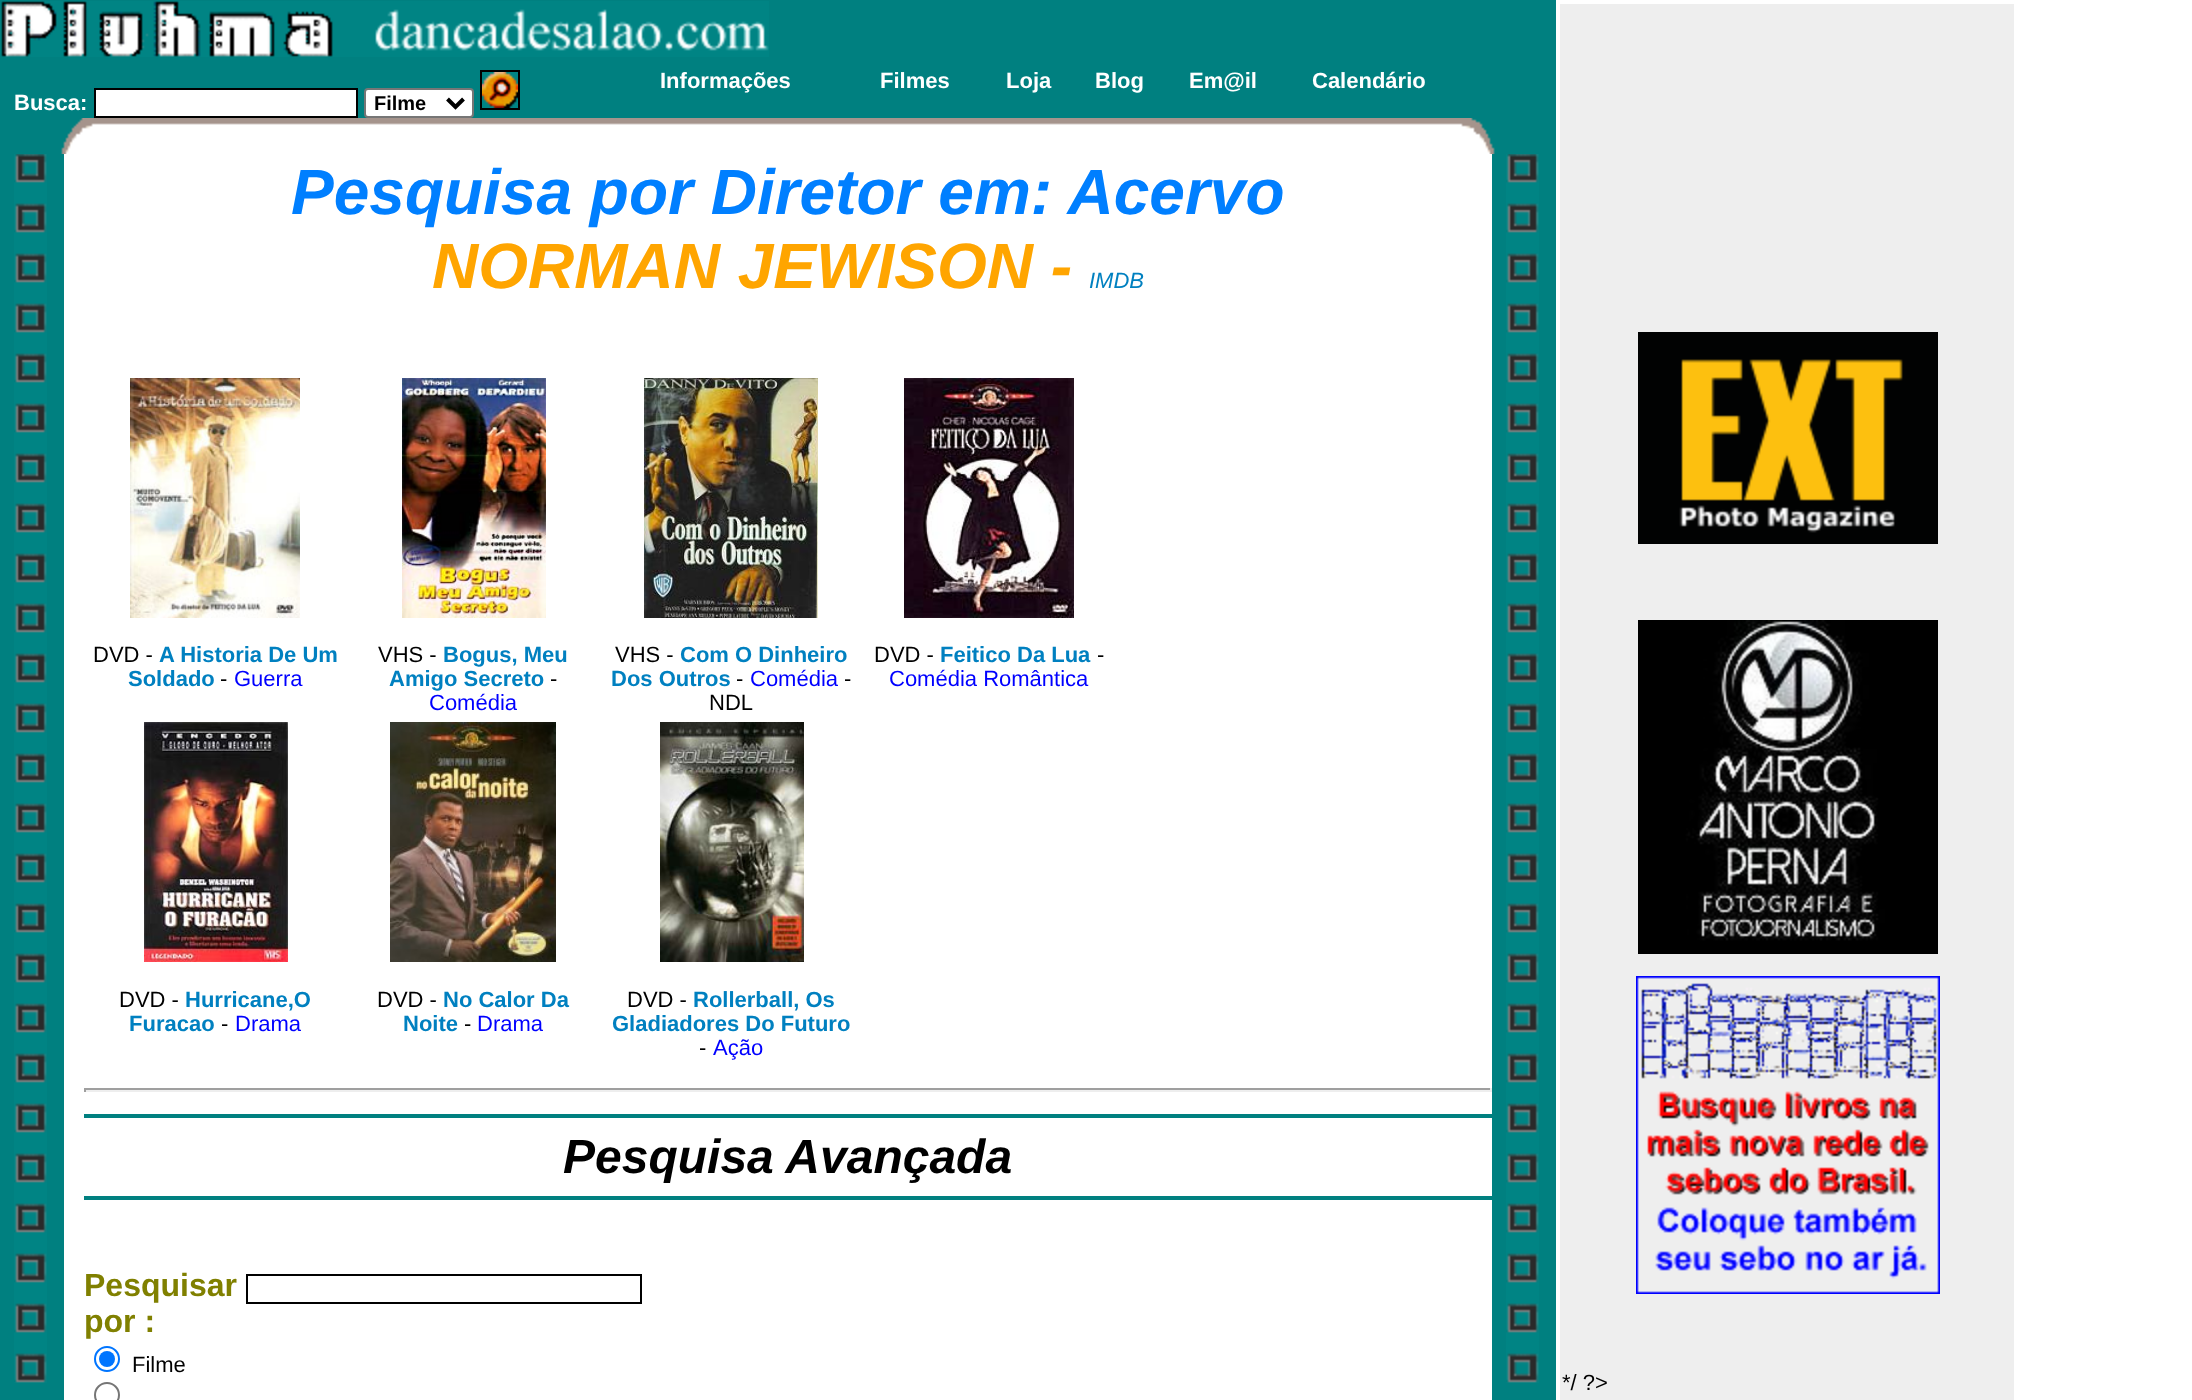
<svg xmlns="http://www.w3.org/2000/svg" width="2192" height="1400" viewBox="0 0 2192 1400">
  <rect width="100%" height="100%" fill="#ffffff"/>
  <rect x="0" y="0" width="1556" height="118" fill="#008080"/>
  <image x="1" y="1" width="768" height="56" href="img1.png"/>
  <text x="660" y="88" font-family="Liberation Sans" font-size="22" font-weight="bold" fill="#ffffff">Informações</text>
  <text x="880" y="88" font-family="Liberation Sans" font-size="22" font-weight="bold" fill="#ffffff">Filmes</text>
  <text x="1006" y="88" font-family="Liberation Sans" font-size="22" font-weight="bold" fill="#ffffff">Loja</text>
  <text x="1095" y="88" font-family="Liberation Sans" font-size="22" font-weight="bold" fill="#ffffff">Blog</text>
  <text x="1189" y="88" font-family="Liberation Sans" font-size="22" font-weight="bold" fill="#ffffff">Em@il</text>
  <text x="1312" y="88" font-family="Liberation Sans" font-size="22" font-weight="bold" fill="#ffffff">Calendário</text>
  <text x="14" y="110" font-family="Liberation Sans" font-size="22" font-weight="bold" fill="#ffffff">Busca:</text>
  <rect x="95" y="89" width="262" height="28" fill="#ffffff" stroke="#000000" stroke-width="2"/>
  <rect x="365" y="89" width="108" height="28" rx="3" fill="#ffffff" stroke="#767676" stroke-width="2"/>
  <path d="M447.5 99L455.5 107L463.5 99" fill="none" stroke="#000000" stroke-width="4"/>
  <text x="374" y="110" font-family="Liberation Sans" font-size="20" font-weight="bold" fill="#000000">Filme</text>
  <rect x="481" y="71" width="38" height="38" fill="none" stroke="#000000" stroke-width="2"/>
  <image x="482" y="72" width="36" height="36" href="img2.png"/>
  <image x="0" y="118" width="1556" height="36" href="img3.png"/>
  <rect x="0" y="154" width="64" height="1246" fill="#008080"/>
  <image x="14" y="154" width="33" height="1229" href="img4.png"/>
  <text x="291" y="214" font-family="Liberation Sans" font-size="64" font-weight="bold" font-style="italic" fill="#007fff">Pesquisa por Diretor em: Acervo</text>
  <text x="432" y="288" font-family="Liberation Sans" font-size="64" font-weight="bold" font-style="italic" fill="#ffa500">NORMAN JEWISON -</text>
  <text x="1089" y="288" font-family="Liberation Sans" font-size="22" font-style="italic" fill="#0080c0">IMDB</text>
  <image x="130" y="378" width="170" height="240" href="img5.png"/>
  <text x="93" y="662" font-family="Liberation Sans" font-size="22" fill="#000000">DVD -</text>
  <text x="159" y="662" font-family="Liberation Sans" font-size="22" font-weight="bold" fill="#0080c0">A Historia De Um</text>
  <text x="128" y="686" font-family="Liberation Sans" font-size="22" font-weight="bold" fill="#0080c0">Soldado</text>
  <text x="220" y="686" font-family="Liberation Sans" font-size="22" fill="#000000">-</text>
  <text x="234" y="686" font-family="Liberation Sans" font-size="22" fill="#0000ff">Guerra</text>
  <image x="402" y="378" width="144" height="240" href="img6.png"/>
  <text x="378" y="662" font-family="Liberation Sans" font-size="22" fill="#000000">VHS -</text>
  <text x="443" y="662" font-family="Liberation Sans" font-size="22" font-weight="bold" fill="#0080c0">Bogus, Meu</text>
  <text x="389" y="686" font-family="Liberation Sans" font-size="22" font-weight="bold" fill="#0080c0">Amigo Secreto</text>
  <text x="550" y="686" font-family="Liberation Sans" font-size="22" fill="#000000">-</text>
  <text x="429" y="710" font-family="Liberation Sans" font-size="22" fill="#0000ff">Comédia</text>
  <image x="644" y="378" width="174" height="240" href="img7.png"/>
  <text x="615" y="662" font-family="Liberation Sans" font-size="22" fill="#000000">VHS -</text>
  <text x="680" y="662" font-family="Liberation Sans" font-size="22" font-weight="bold" fill="#0080c0">Com O Dinheiro</text>
  <text x="611" y="686" font-family="Liberation Sans" font-size="22" font-weight="bold" fill="#0080c0">Dos Outros</text>
  <text x="736" y="686" font-family="Liberation Sans" font-size="22" fill="#000000">-</text>
  <text x="750" y="686" font-family="Liberation Sans" font-size="22" fill="#0000ff">Comédia</text>
  <text x="844" y="686" font-family="Liberation Sans" font-size="22" fill="#000000">-</text>
  <text x="709" y="710" font-family="Liberation Sans" font-size="22" fill="#000000">NDL</text>
  <image x="904" y="378" width="170" height="240" href="img8.png"/>
  <text x="874" y="662" font-family="Liberation Sans" font-size="22" fill="#000000">DVD -</text>
  <text x="940" y="662" font-family="Liberation Sans" font-size="22" font-weight="bold" fill="#0080c0">Feitico Da Lua</text>
  <text x="1097" y="662" font-family="Liberation Sans" font-size="22" fill="#000000">-</text>
  <text x="889" y="686" font-family="Liberation Sans" font-size="22" fill="#0000ff">Comédia Romântica</text>
  <image x="144" y="722" width="144" height="240" href="img9.png"/>
  <text x="119" y="1007" font-family="Liberation Sans" font-size="22" fill="#000000">DVD -</text>
  <text x="185" y="1007" font-family="Liberation Sans" font-size="22" font-weight="bold" fill="#0080c0">Hurricane,O</text>
  <text x="129" y="1031" font-family="Liberation Sans" font-size="22" font-weight="bold" fill="#0080c0">Furacao</text>
  <text x="221" y="1031" font-family="Liberation Sans" font-size="22" fill="#000000">-</text>
  <text x="235" y="1031" font-family="Liberation Sans" font-size="22" fill="#0000ff">Drama</text>
  <image x="390" y="722" width="166" height="240" href="img10.png"/>
  <text x="377" y="1007" font-family="Liberation Sans" font-size="22" fill="#000000">DVD -</text>
  <text x="443" y="1007" font-family="Liberation Sans" font-size="22" font-weight="bold" fill="#0080c0">No Calor Da</text>
  <text x="403" y="1031" font-family="Liberation Sans" font-size="22" font-weight="bold" fill="#0080c0">Noite</text>
  <text x="464" y="1031" font-family="Liberation Sans" font-size="22" fill="#000000">-</text>
  <text x="477" y="1031" font-family="Liberation Sans" font-size="22" fill="#0000ff">Drama</text>
  <image x="660" y="722" width="144" height="240" href="img11.png"/>
  <text x="627" y="1007" font-family="Liberation Sans" font-size="22" fill="#000000">DVD -</text>
  <text x="693" y="1007" font-family="Liberation Sans" font-size="22" font-weight="bold" fill="#0080c0">Rollerball, Os</text>
  <text x="612" y="1031" font-family="Liberation Sans" font-size="22" font-weight="bold" fill="#0080c0">Gladiadores Do Futuro</text>
  <text x="699" y="1055" font-family="Liberation Sans" font-size="22" fill="#000000">-</text>
  <text x="713" y="1055" font-family="Liberation Sans" font-size="22" fill="#0000ff">Ação</text>
  <rect x="84" y="1088" width="1408" height="2" fill="#9f9f9f"/>
  <rect x="1490" y="1088" width="2" height="4" fill="#eeeeee"/>
  <rect x="84" y="1090" width="1408" height="2" fill="#eeeeee"/>
  <rect x="84" y="1088" width="2" height="4" fill="#9f9f9f"/>
  <rect x="84" y="1114" width="1408" height="4" fill="#008080"/>
  <text x="563" y="1173" font-family="Liberation Sans" font-size="48" font-weight="bold" font-style="italic" fill="#000000">Pesquisa Avançada</text>
  <rect x="84" y="1196" width="1408" height="4" fill="#008080"/>
  <text x="84" y="1296" font-family="Liberation Sans" font-size="32" font-weight="bold" fill="#808000">Pesquisar</text>
  <rect x="247" y="1275" width="394" height="28" fill="none" stroke="#000000" stroke-width="2"/>
  <text x="84" y="1332" font-family="Liberation Sans" font-size="32" font-weight="bold" fill="#808000">por :</text>
  <circle cx="107" cy="1359" r="12" fill="none" stroke="#0075ff" stroke-width="2"/>
  <circle cx="107" cy="1359" r="8" fill="#0075ff"/>
  <text x="132" y="1372" font-family="Liberation Sans" font-size="22" fill="#000000">Filme</text>
  <circle cx="107" cy="1395" r="12" fill="none" stroke="#767676" stroke-width="2"/>
  <rect x="1492" y="154" width="64" height="1246" fill="#008080"/>
  <image x="1506" y="154" width="33" height="1229" href="img12.png"/>
  <rect x="1560" y="4" width="454" height="1396" fill="#eeeeee"/>
  <image x="1638" y="332" width="300" height="212" href="img13.png"/>
  <image x="1638" y="620" width="300" height="334" href="img14.png"/>
  <image x="1636" y="976" width="304" height="318" href="img15.png"/>
  <text x="1562" y="1390" font-family="Liberation Sans" font-size="22" fill="#000000">*/ ?&gt;</text>
</svg>
